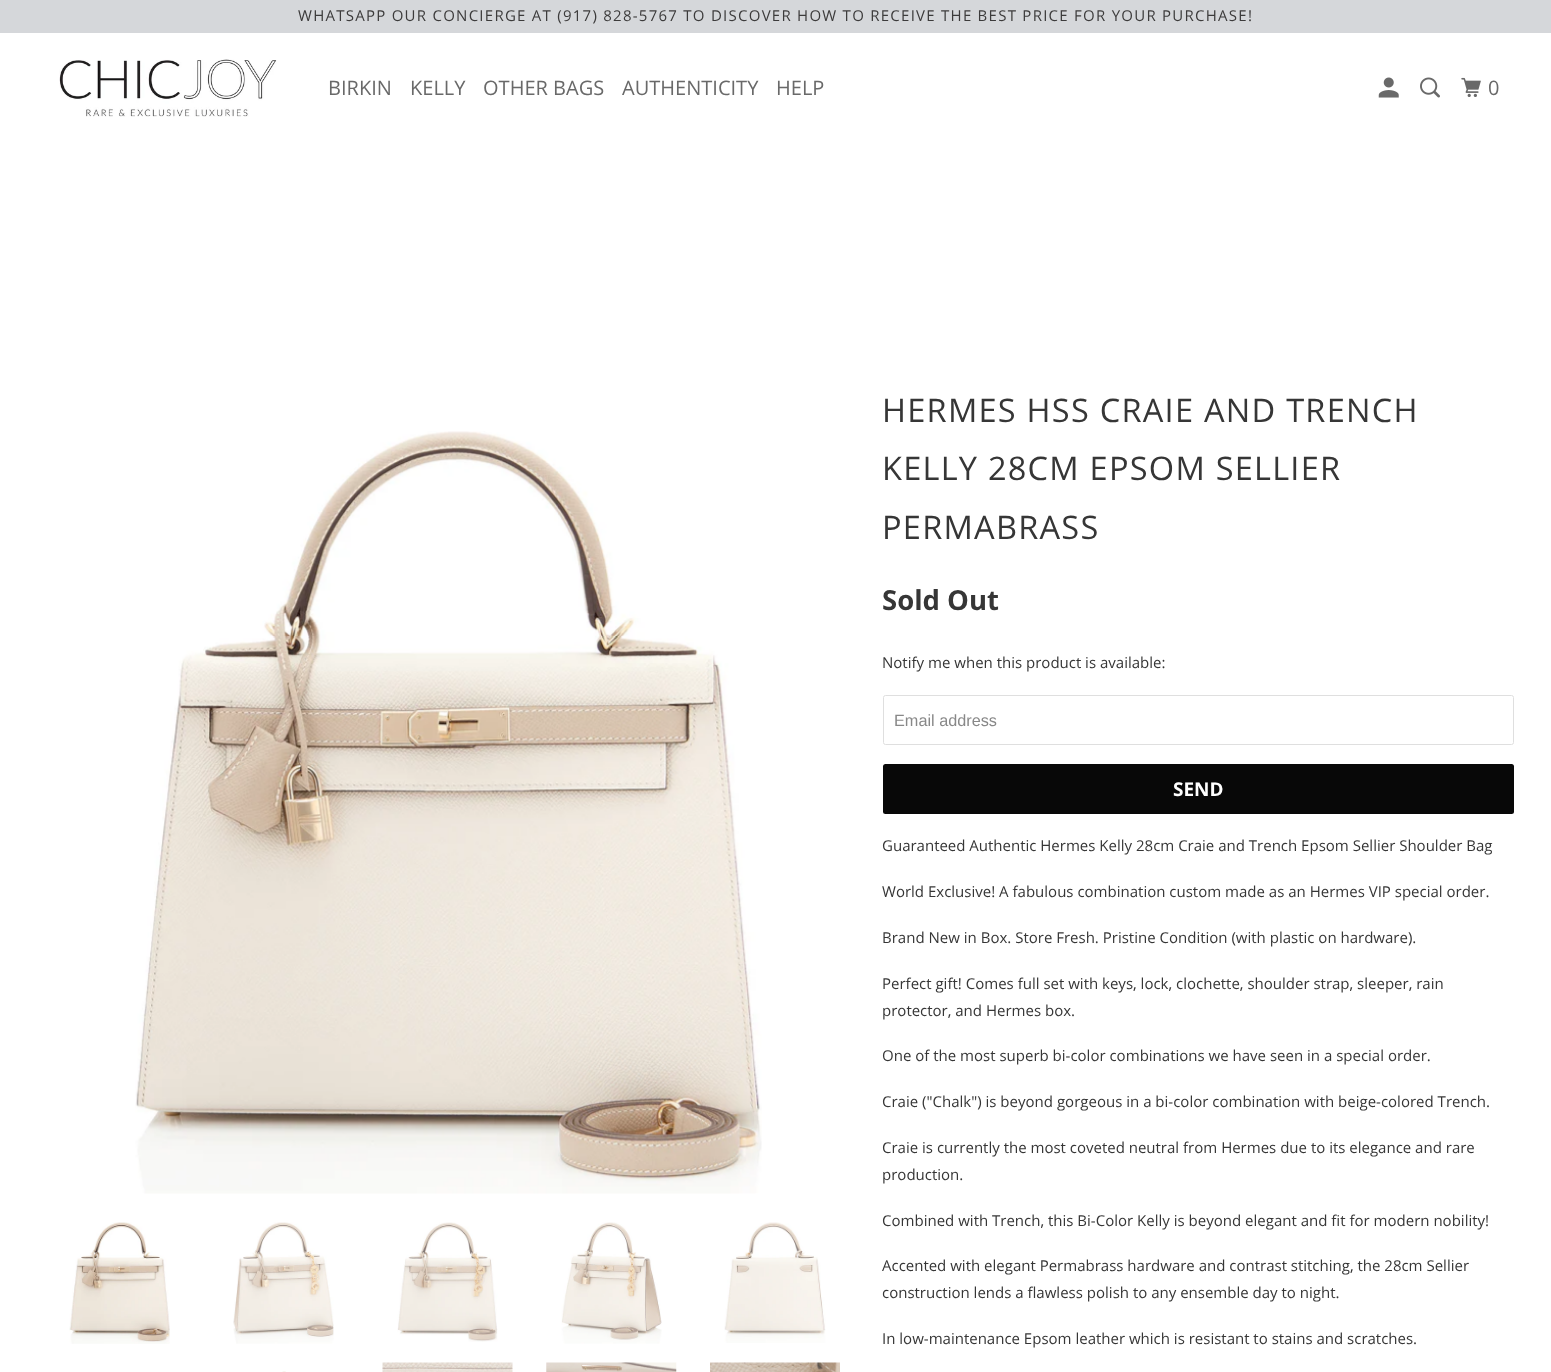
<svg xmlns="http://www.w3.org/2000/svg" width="1551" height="1372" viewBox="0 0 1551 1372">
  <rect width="100%" height="100%" fill="#ffffff"/>
  <rect x="0" y="0" width="1551" height="33" fill="#d5d7da"/>
  <text x="298" y="21" font-family="Open Sans" font-size="15" letter-spacing="1.25" fill="#3c3b3b">WHATSAPP OUR CONCIERGE AT (917) 828-5767 TO DISCOVER HOW TO RECEIVE THE BEST PRICE FOR YOUR PURCHASE!</text>
  <image x="59" y="59" width="218" height="58" href="img1.png"/>
  <text x="328" y="95" font-family="Open Sans" font-size="20" fill="#696969">BIRKIN</text>
  <text x="410" y="95" font-family="Open Sans" font-size="20" fill="#696969">KELLY</text>
  <text x="483" y="95" font-family="Open Sans" font-size="20" fill="#696969">OTHER BAGS</text>
  <text x="622" y="95" font-family="Open Sans" font-size="20" fill="#696969">AUTHENTICITY</text>
  <text x="776" y="95" font-family="Open Sans" font-size="20" fill="#696969">HELP</text>
  <image x="1378" y="77" width="21" height="21" href="img2.png"/>
  <image x="1420" y="77" width="20" height="21" href="img3.png"/>
  <image x="1461" y="77" width="20" height="20" href="img4.png"/>
  <text x="1488" y="95" font-family="Open Sans" font-size="20" fill="#696969">0</text>
  <image x="135" y="431" width="627" height="763" href="img5.png"/>
  <image x="69" y="1222" width="101" height="122" href="img6.png"/>
  <image x="233" y="1222" width="101" height="122" href="img7.png"/>
  <image x="397" y="1222" width="101" height="120" href="img8.png"/>
  <image x="561" y="1222" width="101" height="122" href="img9.png"/>
  <image x="724" y="1222" width="102" height="121" href="img10.png"/>
  <image x="282" y="1371" width="4" height="1" href="img11.png"/>
  <image x="382" y="1362" width="131" height="10" href="img12.png"/>
  <image x="546" y="1362" width="131" height="10" href="img13.png"/>
  <image x="710" y="1362" width="130" height="10" href="img14.png"/>
  <text x="882" y="422" font-family="Open Sans" font-size="32.5" letter-spacing="1.25" fill="#363636">HERMES HSS CRAIE AND TRENCH</text>
  <text x="882" y="480" font-family="Open Sans" font-size="32.5" letter-spacing="1.25" fill="#363636">KELLY 28CM EPSOM SELLIER</text>
  <text x="882" y="539" font-family="Open Sans" font-size="32.5" letter-spacing="1.25" fill="#363636">PERMABRASS</text>
  <text x="882" y="610" font-family="Open Sans" font-size="27.5" font-weight="bold" fill="#363636">Sold Out</text>
  <text x="882" y="668" font-family="Open Sans" font-size="15" fill="#363636">Notify me when this product is available:</text>
  <rect x="883.5" y="695.5" width="630" height="49" rx="2" fill="none" stroke="#dfdfdf"/>
  <text x="894" y="726" font-family="Liberation Sans" font-size="16.25" fill="#888888">Email address</text>
  <rect x="883" y="764" width="631" height="50" rx="2.5" fill="#080808"/>
  <text x="1173" y="796" font-family="Open Sans" font-size="19" font-weight="bold" fill="#ffffff">SEND</text>
  <text x="882" y="851" font-family="Open Sans" font-size="15" fill="#363636">Guaranteed Authentic Hermes Kelly 28cm Craie and Trench Epsom Sellier Shoulder Bag</text>
  <text x="882" y="897" font-family="Open Sans" font-size="15" fill="#363636">World Exclusive! A fabulous combination custom made as an Hermes VIP special order.</text>
  <text x="882" y="943" font-family="Open Sans" font-size="15" fill="#363636">Brand New in Box. Store Fresh. Pristine Condition (with plastic on hardware).</text>
  <text x="882" y="989" font-family="Open Sans" font-size="15" fill="#363636">Perfect gift! Comes full set with keys, lock, clochette, shoulder strap, sleeper, rain</text>
  <text x="882" y="1016" font-family="Open Sans" font-size="15" fill="#363636">protector, and Hermes box.</text>
  <text x="882" y="1061" font-family="Open Sans" font-size="15" fill="#363636">One of the most superb bi-color combinations we have seen in a special order.</text>
  <text x="882" y="1107" font-family="Open Sans" font-size="15" fill="#363636">Craie ("Chalk") is beyond gorgeous in a bi-color combination with beige-colored Trench.</text>
  <text x="882" y="1153" font-family="Open Sans" font-size="15" fill="#363636">Craie is currently the most coveted neutral from Hermes due to its elegance and rare</text>
  <text x="882" y="1180" font-family="Open Sans" font-size="15" fill="#363636">production.</text>
  <text x="882" y="1226" font-family="Open Sans" font-size="15" fill="#363636">Combined with Trench, this Bi-Color Kelly is beyond elegant and fit for modern nobility!</text>
  <text x="882" y="1271" font-family="Open Sans" font-size="15" fill="#363636">Accented with elegant Permabrass hardware and contrast stitching, the 28cm Sellier</text>
  <text x="882" y="1298" font-family="Open Sans" font-size="15" fill="#363636">construction lends a flawless polish to any ensemble day to night.</text>
  <text x="882" y="1344" font-family="Open Sans" font-size="15" fill="#363636">In low-maintenance Epsom leather which is resistant to stains and scratches.</text>
</svg>
